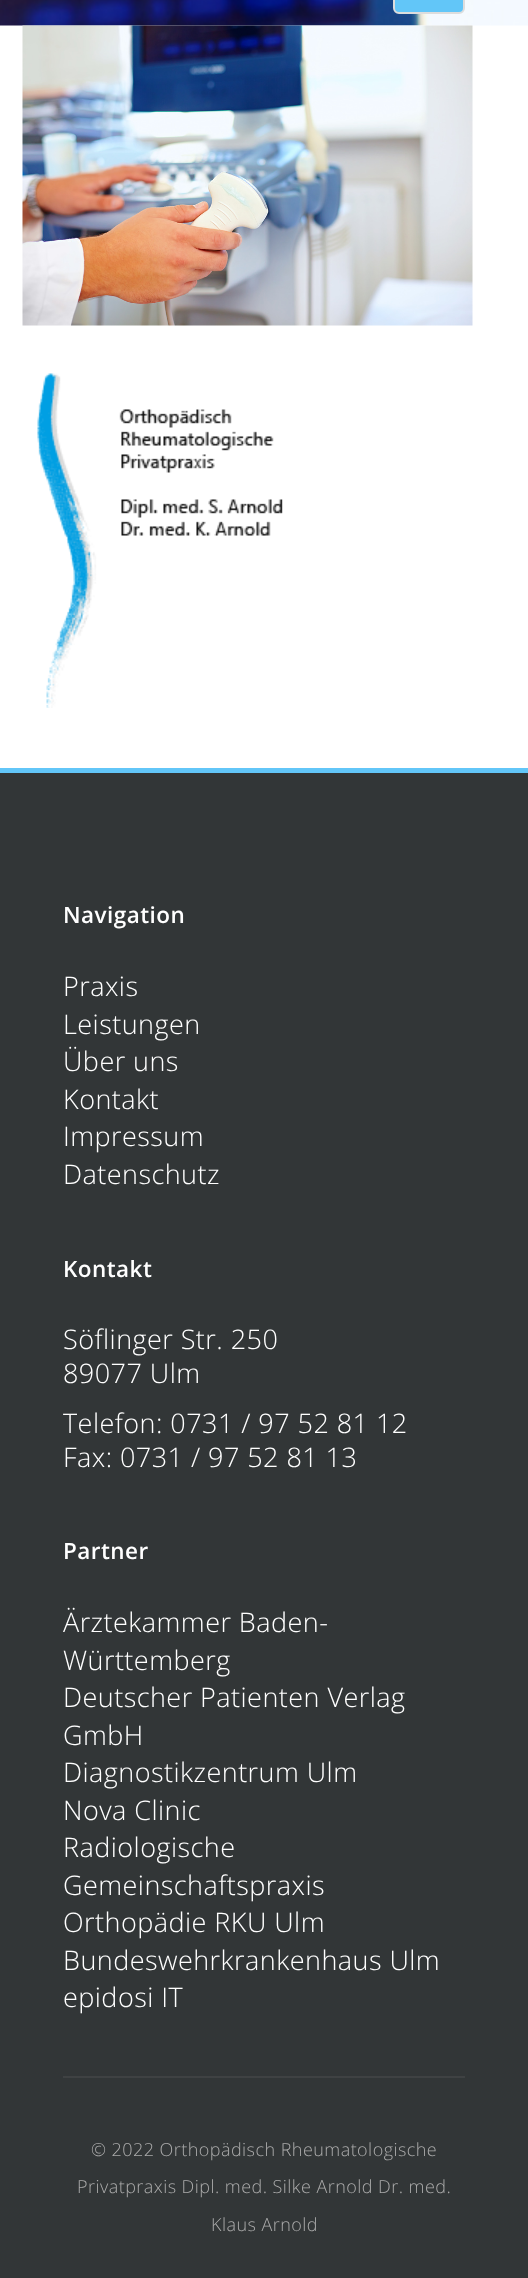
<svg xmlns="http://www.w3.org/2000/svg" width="528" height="2278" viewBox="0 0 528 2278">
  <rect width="100%" height="100%" fill="#ffffff"/>
  <image x="0" y="0" width="528" height="26" href="img1.png"/>
  <rect x="394" y="-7" width="70" height="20" rx="5" fill="#62c6f8" stroke="#dddddd" stroke-width="2"/>
  <image x="22" y="25" width="451" height="301" href="img2.png"/>
  <image x="37" y="373" width="246" height="335" href="img3.png"/>
  <rect x="0" y="768" width="528" height="5" fill="#62c6f8"/>
  <rect x="0" y="773" width="528" height="1505" fill="#323637"/>
  <text x="63" y="923" font-family="Open Sans" font-size="22.5" font-weight="600" letter-spacing="0.45" fill="#ffffff">Navigation</text>
  <text x="63" y="996" font-family="Open Sans" font-size="27" font-weight="300" letter-spacing="0.45" fill="#ffffff">Praxis</text>
  <text x="63" y="1034" font-family="Open Sans" font-size="27" font-weight="300" letter-spacing="0.45" fill="#ffffff">Leistungen</text>
  <text x="63" y="1071" font-family="Open Sans" font-size="27" font-weight="300" letter-spacing="0.45" fill="#ffffff">Über uns</text>
  <text x="63" y="1109" font-family="Open Sans" font-size="27" font-weight="300" letter-spacing="0.45" fill="#ffffff">Kontakt</text>
  <text x="63" y="1146" font-family="Open Sans" font-size="27" font-weight="300" letter-spacing="0.45" fill="#ffffff">Impressum</text>
  <text x="63" y="1184" font-family="Open Sans" font-size="27" font-weight="300" letter-spacing="0.45" fill="#ffffff">Datenschutz</text>
  <text x="63" y="1277" font-family="Open Sans" font-size="22.5" font-weight="600" letter-spacing="0.45" fill="#ffffff">Kontakt</text>
  <text x="63" y="1349" font-family="Open Sans" font-size="27" font-weight="300" letter-spacing="0.45" fill="#ffffff">Söflinger Str. 250</text>
  <text x="63" y="1383" font-family="Open Sans" font-size="27" font-weight="300" letter-spacing="0.45" fill="#ffffff">89077 Ulm</text>
  <text x="63" y="1433" font-family="Open Sans" font-size="27" font-weight="300" letter-spacing="0.45" fill="#ffffff">Telefon: 0731 / 97 52 81 12</text>
  <text x="63" y="1467" font-family="Open Sans" font-size="27" font-weight="300" letter-spacing="0.45" fill="#ffffff">Fax: 0731 / 97 52 81 13</text>
  <text x="63" y="1559" font-family="Open Sans" font-size="22.5" font-weight="600" letter-spacing="0.45" fill="#ffffff">Partner</text>
  <text x="63" y="1632" font-family="Open Sans" font-size="27" font-weight="300" letter-spacing="0.45" fill="#ffffff">Ärztekammer Baden-</text>
  <text x="63" y="1670" font-family="Open Sans" font-size="27" font-weight="300" letter-spacing="0.45" fill="#ffffff">Württemberg</text>
  <text x="63" y="1707" font-family="Open Sans" font-size="27" font-weight="300" letter-spacing="0.45" fill="#ffffff">Deutscher Patienten Verlag</text>
  <text x="63" y="1745" font-family="Open Sans" font-size="27" font-weight="300" letter-spacing="0.45" fill="#ffffff">GmbH</text>
  <text x="63" y="1782" font-family="Open Sans" font-size="27" font-weight="300" letter-spacing="0.45" fill="#ffffff">Diagnostikzentrum Ulm</text>
  <text x="63" y="1820" font-family="Open Sans" font-size="27" font-weight="300" letter-spacing="0.45" fill="#ffffff">Nova Clinic</text>
  <text x="63" y="1857" font-family="Open Sans" font-size="27" font-weight="300" letter-spacing="0.45" fill="#ffffff">Radiologische</text>
  <text x="63" y="1895" font-family="Open Sans" font-size="27" font-weight="300" letter-spacing="0.45" fill="#ffffff">Gemeinschaftspraxis</text>
  <text x="63" y="1932" font-family="Open Sans" font-size="27" font-weight="300" letter-spacing="0.45" fill="#ffffff">Orthopädie RKU Ulm</text>
  <text x="63" y="1970" font-family="Open Sans" font-size="27" font-weight="300" letter-spacing="0.45" fill="#ffffff">Bundeswehrkrankenhaus Ulm</text>
  <text x="63" y="2007" font-family="Open Sans" font-size="27" font-weight="300" letter-spacing="0.45" fill="#ffffff">epidosi IT</text>
  <rect x="63" y="2076" width="402" height="2" fill="#3f4243"/>
  <text x="91" y="2156" font-family="Open Sans" font-size="18" font-weight="300" letter-spacing="0.45" fill="#ababab">© 2022 Orthopädisch Rheumatologische</text>
  <text x="77" y="2193" font-family="Open Sans" font-size="18" font-weight="300" letter-spacing="0.45" fill="#ababab">Privatpraxis Dipl. med. Silke Arnold Dr. med.</text>
  <text x="211" y="2231" font-family="Open Sans" font-size="18" font-weight="300" letter-spacing="0.45" fill="#ababab">Klaus Arnold</text>
</svg>
